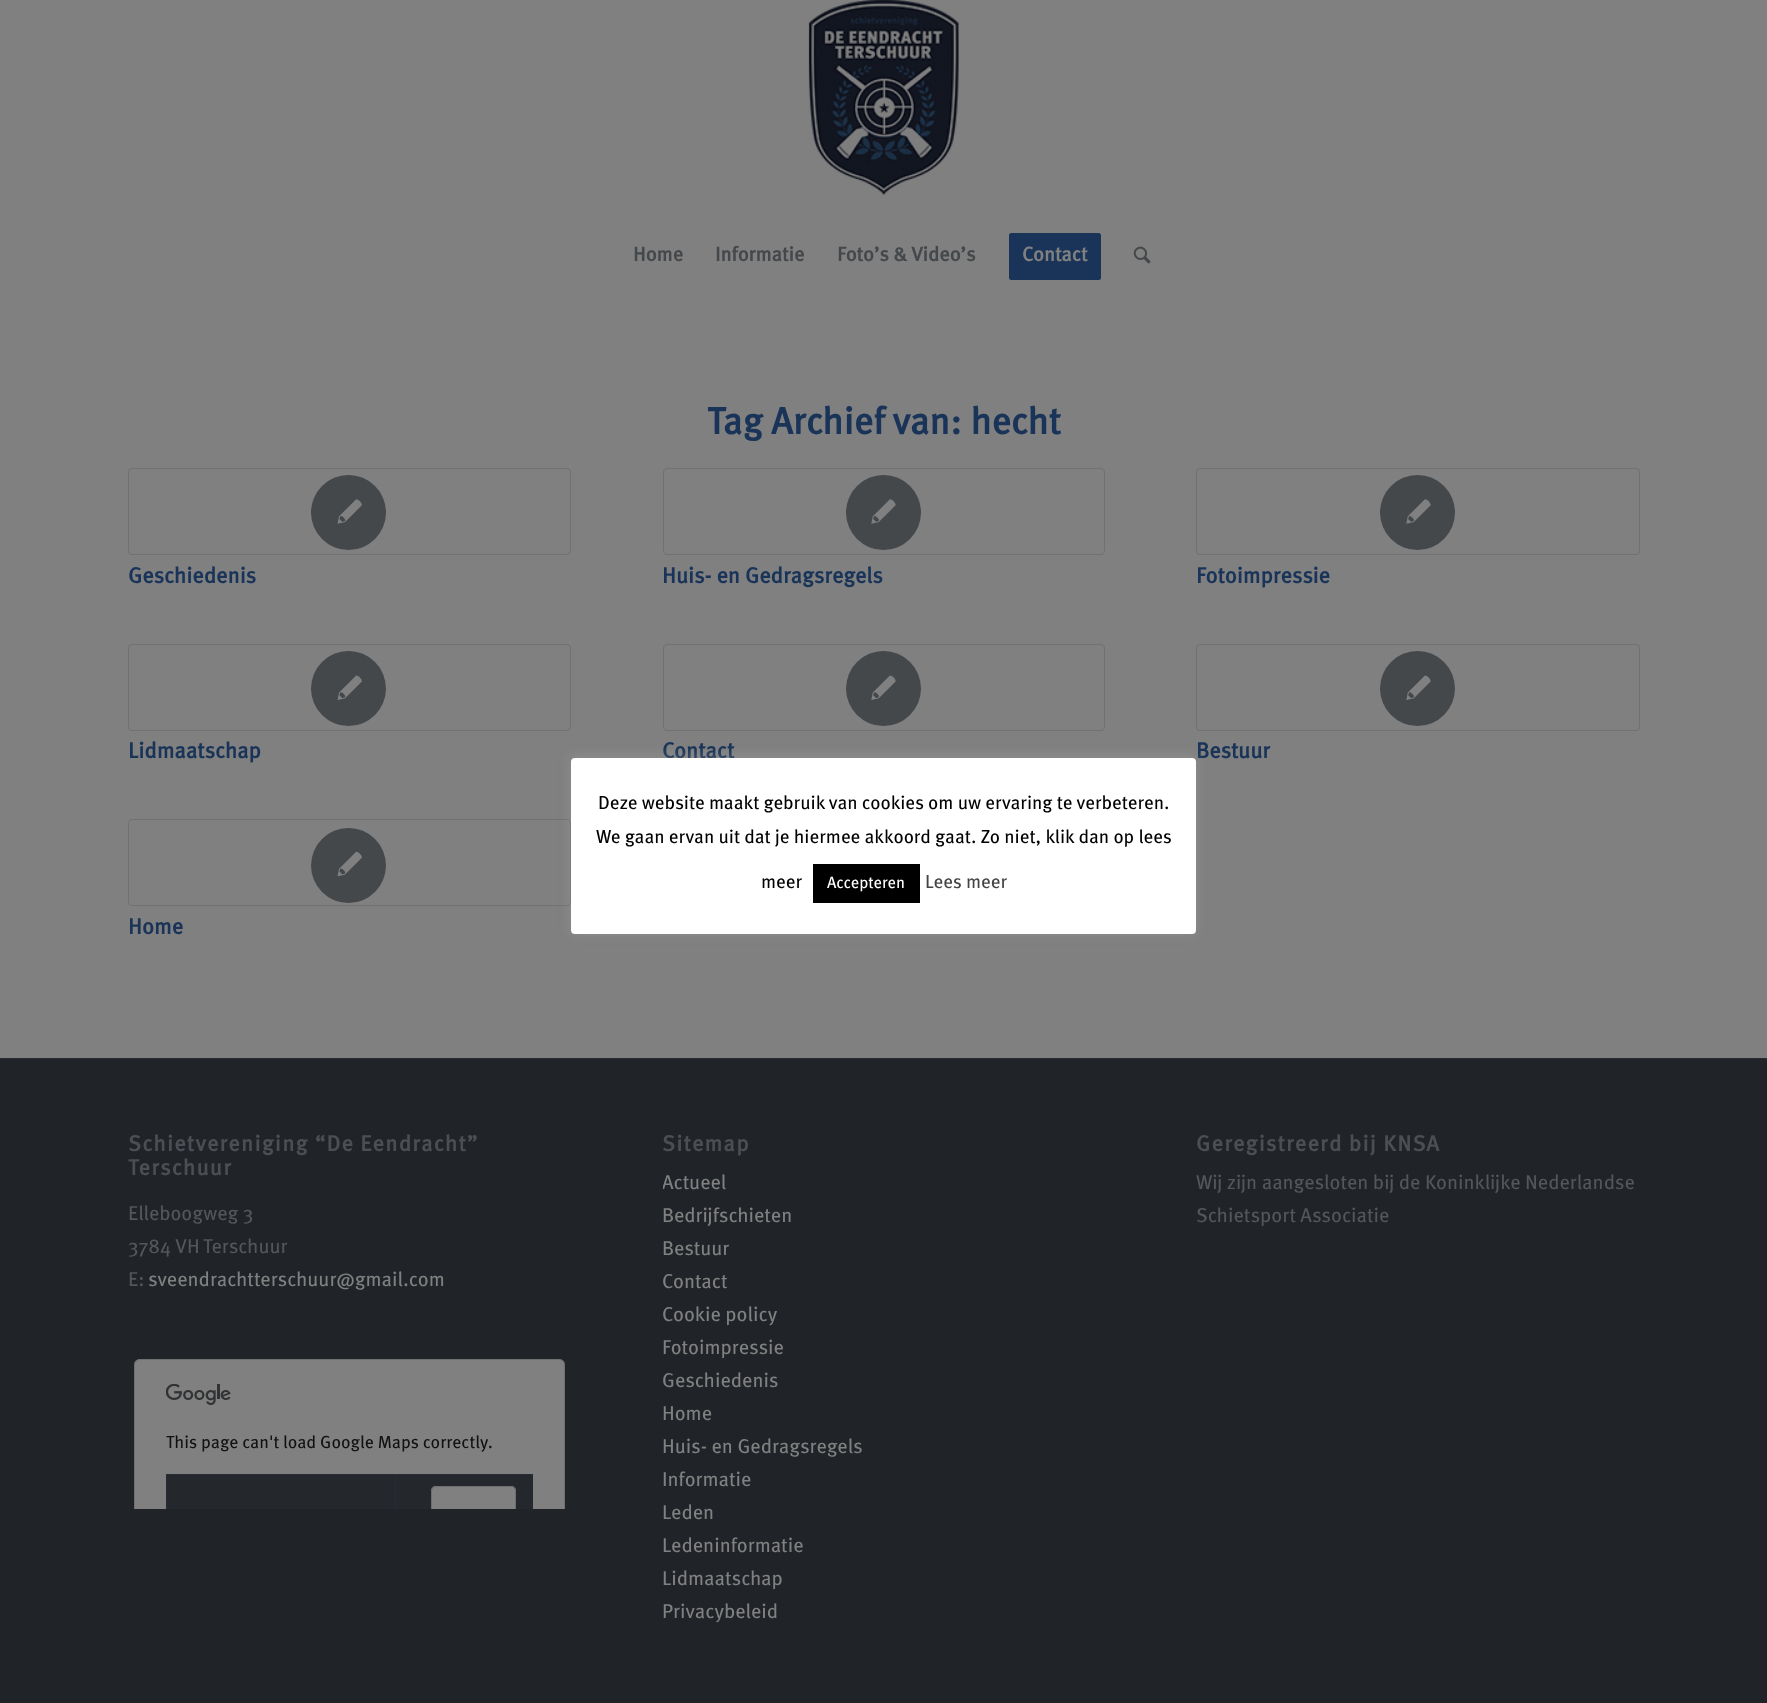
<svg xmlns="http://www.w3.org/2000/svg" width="1767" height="1703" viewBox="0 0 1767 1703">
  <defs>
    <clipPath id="clip1"><rect x="128" y="1353" width="443" height="156"/></clipPath>
    <clipPath id="clip2"><rect x="663" y="1115" width="442" height="515"/></clipPath>
    <filter id="blur1" x="-50%" y="-200%" width="200%" height="500%"><feGaussianBlur stdDeviation="6"/></filter>
  </defs>
  <rect width="100%" height="100%" fill="#808080"/>
  <image x="808" y="0" width="151" height="195" href="img1.png"/>
  <text x="633" y="261" font-family="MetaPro" font-size="20" font-weight="bold" fill="#44484b">Home</text>
  <text x="715" y="261" font-family="MetaPro" font-size="20" font-weight="bold" fill="#44484b">Informatie</text>
  <text x="837" y="261" font-family="MetaPro" font-size="20" font-weight="bold" fill="#44484b">Foto’s &amp; Video’s</text>
  <rect x="1010.5" y="234.5" width="89" height="44" rx="1" fill="#193458" stroke="#193458" stroke-width="3"/>
  <text x="1022" y="261" font-family="MetaPro" font-size="20" font-weight="bold" fill="#808080">Contact</text>
  <image x="1133" y="246" width="18" height="18" href="img2.png"/>
  <text x="707" y="434" font-family="MetaPro" font-size="37.5" font-weight="bold" fill="#193458">Tag Archief van: hecht</text>
  <rect x="128.5" y="468.5" width="442" height="86" rx="3.5" fill="none" stroke="#717171"/>
  <circle cx="348.5" cy="512.5" r="37.5" fill="#44484b"/>
  <image x="337" y="499" width="25" height="25" href="img3.png"/>
  <text x="128" y="583" font-family="MetaPro" font-size="22" font-weight="bold" fill="#193458">Geschiedenis</text>
  <rect x="663.5" y="468.5" width="441" height="86" rx="3.5" fill="none" stroke="#717171"/>
  <circle cx="883.5" cy="512.5" r="37.5" fill="#44484b"/>
  <image x="871" y="499" width="25" height="25" href="img4.png"/>
  <text x="662" y="583" font-family="MetaPro" font-size="22" font-weight="bold" fill="#193458">Huis- en Gedragsregels</text>
  <rect x="1196.5" y="468.5" width="443" height="86" rx="3.5" fill="none" stroke="#717171"/>
  <circle cx="1417.5" cy="512.5" r="37.5" fill="#44484b"/>
  <image x="1406" y="499" width="25" height="25" href="img4.png"/>
  <text x="1196" y="583" font-family="MetaPro" font-size="22" font-weight="bold" fill="#193458">Fotoimpressie</text>
  <rect x="128.5" y="644.5" width="442" height="86" rx="3.5" fill="none" stroke="#717171"/>
  <circle cx="348.5" cy="688.5" r="37.5" fill="#44484b"/>
  <image x="337" y="675" width="25" height="25" href="img5.png"/>
  <text x="128" y="758" font-family="MetaPro" font-size="22" font-weight="bold" fill="#193458">Lidmaatschap</text>
  <rect x="663.5" y="644.5" width="441" height="86" rx="3.5" fill="none" stroke="#717171"/>
  <circle cx="883.5" cy="688.5" r="37.5" fill="#44484b"/>
  <image x="871" y="675" width="25" height="25" href="img6.png"/>
  <text x="662" y="758" font-family="MetaPro" font-size="22" font-weight="bold" fill="#193458">Contact</text>
  <rect x="1196.5" y="644.5" width="443" height="86" rx="3.5" fill="none" stroke="#717171"/>
  <circle cx="1417.5" cy="688.5" r="37.5" fill="#44484b"/>
  <image x="1406" y="675" width="25" height="25" href="img6.png"/>
  <text x="1196" y="758" font-family="MetaPro" font-size="22" font-weight="bold" fill="#193458">Bestuur</text>
  <rect x="128.5" y="819.5" width="442" height="86" rx="3.5" fill="none" stroke="#717171"/>
  <circle cx="348.5" cy="865.5" r="37.5" fill="#44484b"/>
  <image x="337" y="851" width="25" height="26" href="img7.png"/>
  <text x="128" y="934" font-family="MetaPro" font-size="22" font-weight="bold" fill="#193458">Home</text>
  <rect x="0" y="1059" width="1767" height="644" fill="#202429"/>
  <rect x="0" y="1058" width="1767" height="1" fill="#272c32"/>
  <text x="128" y="1151" font-family="MetaPro" font-size="22" font-weight="bold" letter-spacing="1.25" fill="#4b4e52">Schietvereniging “De Eendracht”</text>
  <text x="128" y="1175" font-family="MetaPro" font-size="22" font-weight="bold" letter-spacing="1.25" fill="#4b4e52">Terschuur</text>
  <text x="128" y="1220" font-family="MetaPro" font-size="20" fill="#545659">Elleboogweg 3</text>
  <text x="128" y="1253" font-family="MetaPro" font-size="20" fill="#545659">3784 VH</text>
  <text x="203" y="1253" font-family="MetaPro" font-size="20" fill="#545659">Terschuur</text>
  <text x="128" y="1286" font-family="MetaPro" font-size="20" fill="#545659">E:</text>
  <text x="148" y="1286" font-family="MetaPro" font-size="20" fill="#808080">sveendrachtterschuur@gmail.com</text>
  <path d="M140 1359H559C562.5 1359 565 1361.5 565 1365V1509H134V1365C134 1361.5 136.5 1359 140 1359Z" fill="#808080"/>
  <g clip-path="url(#clip1)">
    <rect x="134.5" y="1359.5" width="430" height="229" rx="5.5" fill="none" stroke="#000000" stroke-opacity="0.12"/>
  </g>
  <image x="166" y="1384" width="65" height="21" href="img8.png"/>
  <text x="166" y="1448" font-family="MetaPro" font-size="17.5" fill="#111111">This page can't load Google Maps correctly.</text>
  <rect x="167" y="1475" width="366" height="34" fill="#24282d"/>
  <rect x="166" y="1474" width="367" height="1" fill="#272c32"/>
  <rect x="531" y="1474" width="1" height="35" fill="#272c32"/>
  <path d="M436 1486H511C514 1486 516 1488 516 1491V1509H431V1491C431 1488 433 1486 436 1486Z" fill="#808080"/>
  <g clip-path="url(#clip1)">
    <rect x="431.5" y="1486.5" width="84" height="44" rx="4.5" fill="none" stroke="#6d6e70"/>
  </g>
  <rect x="395" y="1474" width="1" height="35" fill="#272c32"/>
  <rect x="166" y="1474" width="1" height="35" fill="#272c32"/>
  <text x="662" y="1151" font-family="MetaPro" font-size="22" font-weight="bold" letter-spacing="1.25" fill="#4b4e52">Sitemap</text>
  <g clip-path="url(#clip2)">
    <text x="662" y="1189" font-family="MetaPro" font-size="20" fill="#808080">Actueel</text>
  </g>
  <text x="662" y="1222" font-family="MetaPro" font-size="20" fill="#808080">Bedrijfschieten</text>
  <text x="662" y="1255" font-family="MetaPro" font-size="20" fill="#808080">Bestuur</text>
  <text x="662" y="1288" font-family="MetaPro" font-size="20" fill="#808080">Contact</text>
  <text x="662" y="1321" font-family="MetaPro" font-size="20" fill="#808080">Cookie policy</text>
  <text x="662" y="1354" font-family="MetaPro" font-size="20" fill="#808080">Fotoimpressie</text>
  <text x="662" y="1387" font-family="MetaPro" font-size="20" fill="#808080">Geschiedenis</text>
  <text x="662" y="1420" font-family="MetaPro" font-size="20" fill="#808080">Home</text>
  <text x="662" y="1453" font-family="MetaPro" font-size="20" fill="#808080">Huis- en Gedragsregels</text>
  <text x="662" y="1486" font-family="MetaPro" font-size="20" fill="#808080">Informatie</text>
  <text x="662" y="1519" font-family="MetaPro" font-size="20" fill="#808080">Leden</text>
  <text x="662" y="1552" font-family="MetaPro" font-size="20" fill="#808080">Ledeninformatie</text>
  <text x="662" y="1585" font-family="MetaPro" font-size="20" fill="#808080">Lidmaatschap</text>
  <text x="662" y="1618" font-family="MetaPro" font-size="20" fill="#808080">Privacybeleid</text>
  <text x="1196" y="1151" font-family="MetaPro" font-size="22" font-weight="bold" letter-spacing="1.25" fill="#4b4e52">Geregistreerd bij KNSA</text>
  <text x="1196" y="1189" font-family="MetaPro" font-size="20" fill="#545659">Wij zijn aangesloten bij de Koninklijke Nederlandse</text>
  <text x="1196" y="1222" font-family="MetaPro" font-size="20" fill="#545659">Schietsport Associatie</text>
  <rect x="571" y="756" width="625" height="177" rx="4" fill="#acabab" fill-opacity="0.3" filter="url(#blur1)"/>
  <rect x="571" y="758" width="625" height="176" rx="4" fill="#ffffff"/>
  <text x="598" y="809" font-family="MetaPro" font-size="18.75" fill="#000000">Deze website maakt gebruik van cookies om uw ervaring te verbeteren.</text>
  <text x="596" y="843" font-family="MetaPro" font-size="18.75" fill="#000000">We gaan ervan uit dat je hiermee akkoord gaat. Zo niet, klik dan op lees</text>
  <text x="761" y="888" font-family="MetaPro" font-size="18.75" fill="#000000">meer</text>
  <rect x="813" y="864" width="107" height="39" fill="#000000"/>
  <text x="827" y="888" font-family="MetaPro" font-size="16.25" fill="#ffffff">Accepteren</text>
  <text x="925" y="888" font-family="MetaPro" font-size="18.75" fill="#444444">Lees meer</text>
</svg>
